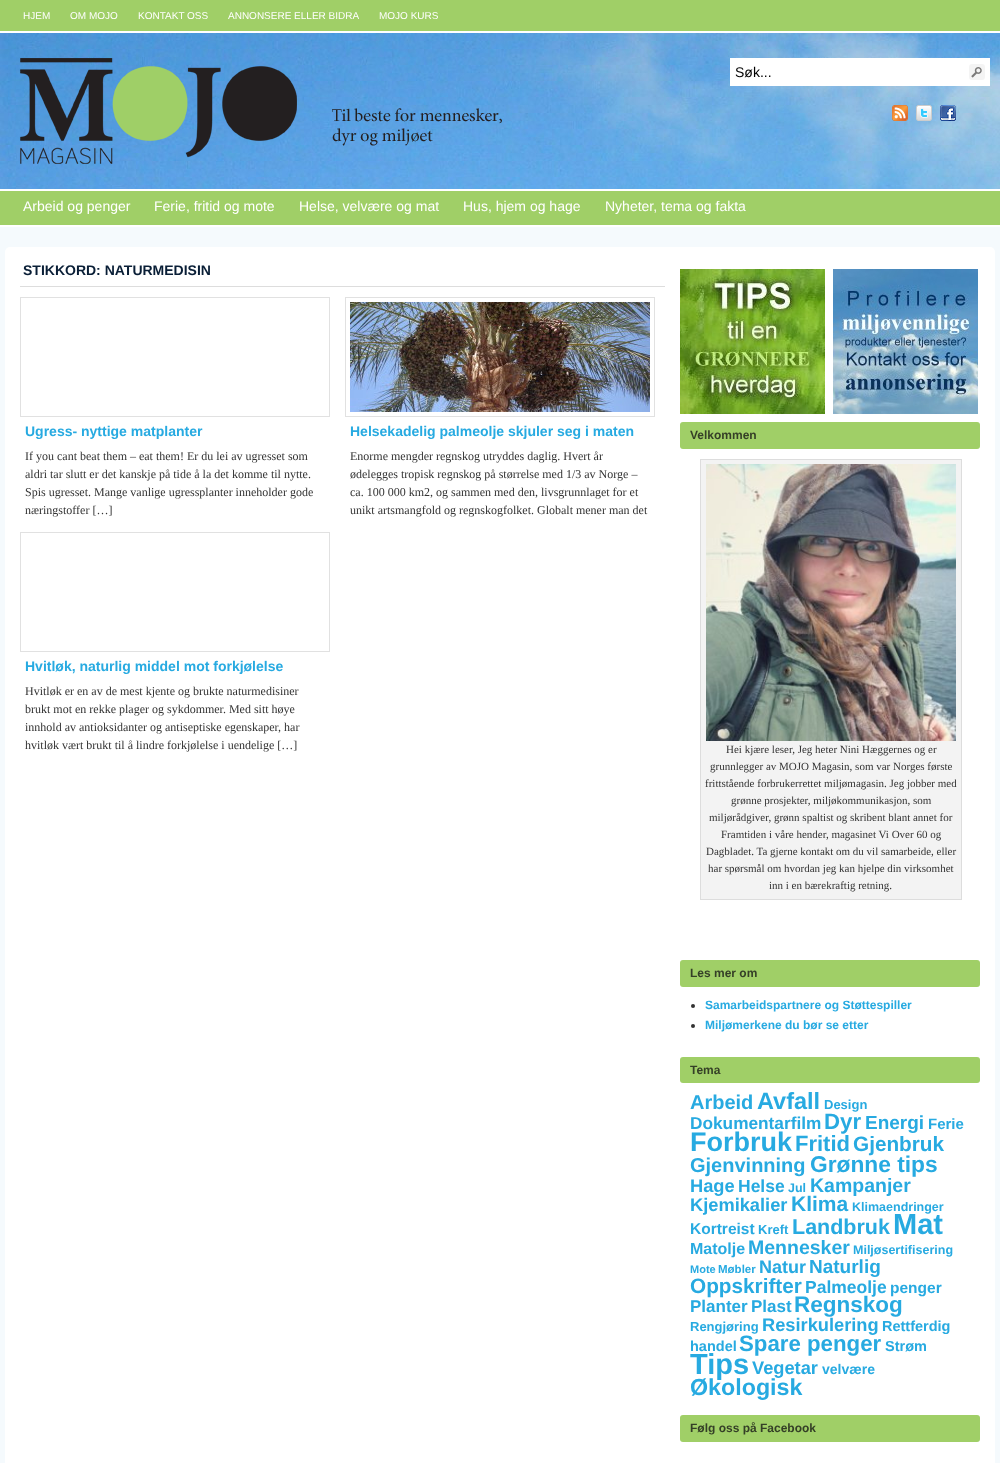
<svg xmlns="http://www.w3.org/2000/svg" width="1000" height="1463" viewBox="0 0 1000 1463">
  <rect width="100%" height="100%" fill="#a0cf67"/>
  <rect x="0" y="31" width="1000" height="2" fill="#ffffff"/>
  <text x="23" y="19" font-family="Liberation Sans" font-size="10" fill="#ffffff">HJEM</text>
  <text x="70" y="19" font-family="Liberation Sans" font-size="10" fill="#ffffff">OM MOJO</text>
  <text x="138" y="19" font-family="Liberation Sans" font-size="10" fill="#ffffff">KONTAKT OSS</text>
  <text x="228" y="19" font-family="Liberation Sans" font-size="10" fill="#ffffff">ANNONSERE ELLER BIDRA</text>
  <text x="379" y="19" font-family="Liberation Sans" font-size="10" fill="#ffffff">MOJO KURS</text>
  <image x="0" y="33" width="1000" height="156" href="img1.png"/>
  <rect x="0" y="189" width="1000" height="2" fill="#ffffff"/>
  <image x="20" y="58" width="482" height="106" href="img2.png"/>
  <rect x="730" y="58" width="260" height="28" fill="#ffffff"/>
  <text x="735" y="77" font-family="Liberation Sans" font-size="14" fill="#000000">Søk...</text>
  <image x="969" y="64" width="16" height="16" href="img3.png"/>
  <image x="892" y="105" width="16" height="16" href="img4.png"/>
  <image x="916" y="105" width="16" height="16" href="img5.png"/>
  <image x="940" y="105" width="16" height="16" href="img6.png"/>
  <rect x="0" y="225" width="1000" height="2" fill="#ffffff"/>
  <text x="23" y="211" font-family="Liberation Sans" font-size="14" fill="#ffffff">Arbeid og penger</text>
  <text x="154" y="211" font-family="Liberation Sans" font-size="14" fill="#ffffff">Ferie, fritid og mote</text>
  <text x="299" y="211" font-family="Liberation Sans" font-size="14" fill="#ffffff">Helse, velvære og mat</text>
  <text x="463" y="211" font-family="Liberation Sans" font-size="14" fill="#ffffff">Hus, hjem og hage</text>
  <text x="605" y="211" font-family="Liberation Sans" font-size="14" fill="#ffffff">Nyheter, tema og fakta</text>
  <rect x="0" y="227" width="1000" height="1236" fill="#f5fafd"/>
  <rect x="5" y="247" width="990" height="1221" rx="5" fill="#ffffff"/>
  <rect x="20" y="286" width="645" height="1" fill="#dddddd"/>
  <text x="23" y="275" font-family="Liberation Sans" font-size="14" font-weight="bold" fill="#091e36">STIKKORD: NATURMEDISIN</text>
  <rect x="20.5" y="297.5" width="309" height="119" fill="none" stroke="#e1e1e1"/>
  <text x="25" y="436" font-family="Liberation Sans" font-size="14" font-weight="bold" fill="#27aae1">Ugress- nyttige matplanter</text>
  <text x="25" y="460" font-family="Liberation Serif" font-size="12" fill="#333333">If you cant beat them – eat them! Er du lei av ugresset som</text>
  <text x="25" y="478" font-family="Liberation Serif" font-size="12" fill="#333333">aldri tar slutt er det kanskje på tide å la det komme til nytte.</text>
  <text x="25" y="496" font-family="Liberation Serif" font-size="12" fill="#333333">Spis ugresset. Mange vanlige ugressplanter inneholder gode</text>
  <text x="25" y="514" font-family="Liberation Serif" font-size="12" fill="#333333">næringstoffer […]</text>
  <rect x="345.5" y="297.5" width="309" height="119" fill="none" stroke="#e1e1e1"/>
  <image x="350" y="302" width="300" height="110" href="img7.png"/>
  <text x="350" y="436" font-family="Liberation Sans" font-size="14" font-weight="bold" fill="#27aae1">Helsekadelig palmeolje skjuler seg i maten</text>
  <text x="350" y="460" font-family="Liberation Serif" font-size="12" fill="#333333">Enorme mengder regnskog utryddes daglig. Hvert år</text>
  <text x="350" y="478" font-family="Liberation Serif" font-size="12" fill="#333333">ødelegges tropisk regnskog på størrelse med 1/3 av Norge –</text>
  <text x="350" y="496" font-family="Liberation Serif" font-size="12" fill="#333333">ca. 100 000 km2, og sammen med den, livsgrunnlaget for et</text>
  <text x="350" y="514" font-family="Liberation Serif" font-size="12" fill="#333333">unikt artsmangfold og regnskogfolket. Globalt mener man det</text>
  <rect x="20.5" y="532.5" width="309" height="119" fill="none" stroke="#e1e1e1"/>
  <text x="25" y="671" font-family="Liberation Sans" font-size="14" font-weight="bold" fill="#27aae1">Hvitløk, naturlig middel mot forkjølelse</text>
  <text x="25" y="695" font-family="Liberation Serif" font-size="12" fill="#333333">Hvitløk er en av de mest kjente og brukte naturmedisiner</text>
  <text x="25" y="713" font-family="Liberation Serif" font-size="12" fill="#333333">brukt mot en rekke plager og sykdommer. Med sitt høye</text>
  <text x="25" y="731" font-family="Liberation Serif" font-size="12" fill="#333333">innhold av antioksidanter og antiseptiske egenskaper, har</text>
  <text x="25" y="749" font-family="Liberation Serif" font-size="12" fill="#333333">hvitløk vært brukt til å lindre forkjølelse i uendelige […]</text>
  <image x="680" y="269" width="145" height="145" href="img8.png"/>
  <image x="833" y="269" width="145" height="145" href="img9.png"/>
  <rect x="680" y="422" width="300" height="27" rx="3" fill="#a0cf67"/>
  <text x="690" y="439" font-family="Liberation Sans" font-size="12" font-weight="bold" fill="#354027">Velkommen</text>
  <rect x="700.5" y="459.5" width="261" height="440" fill="#f3f3f3" stroke="#dddddd"/>
  <image x="706" y="464" width="250" height="277" href="img10.png"/>
  <text x="726" y="753" font-family="Liberation Serif" font-size="11" fill="#333333">Hei kjære leser, Jeg heter Nini Hæggernes og er</text>
  <text x="710" y="770" font-family="Liberation Serif" font-size="11" fill="#333333">grunnlegger av MOJO Magasin, som var Norges første</text>
  <text x="705" y="787" font-family="Liberation Serif" font-size="11" fill="#333333">frittstående forbrukerrettet miljømagasin. Jeg jobber med</text>
  <text x="731" y="804" font-family="Liberation Serif" font-size="11" fill="#333333">grønne prosjekter, miljøkommunikasjon, som</text>
  <text x="709" y="821" font-family="Liberation Serif" font-size="11" fill="#333333">miljørådgiver, grønn spaltist og skribent blant annet for</text>
  <text x="721" y="838" font-family="Liberation Serif" font-size="11" fill="#333333">Framtiden i våre hender, magasinet Vi Over 60 og</text>
  <text x="706" y="855" font-family="Liberation Serif" font-size="11" fill="#333333">Dagbladet. Ta gjerne kontakt om du vil samarbeide, eller</text>
  <text x="708" y="872" font-family="Liberation Serif" font-size="11" fill="#333333">har spørsmål om hvordan jeg kan hjelpe din virksomhet</text>
  <text x="769" y="889" font-family="Liberation Serif" font-size="11" fill="#333333">inn i en bærekraftig retning.</text>
  <rect x="680" y="960" width="300" height="27" rx="3" fill="#a0cf67"/>
  <text x="690" y="977" font-family="Liberation Sans" font-size="12" font-weight="bold" fill="#354027">Les mer om</text>
  <circle cx="693" cy="1006" r="2" fill="#333333"/>
  <text x="705" y="1009" font-family="Liberation Sans" font-size="12" font-weight="bold" fill="#27aae1">Samarbeidspartnere og Støttespiller</text>
  <circle cx="693" cy="1026" r="2" fill="#333333"/>
  <text x="705" y="1029" font-family="Liberation Sans" font-size="12" font-weight="bold" fill="#27aae1">Miljømerkene du bør se etter</text>
  <rect x="680" y="1057" width="300" height="26" rx="3" fill="#a0cf67"/>
  <text x="690" y="1074" font-family="Liberation Sans" font-size="12" font-weight="bold" fill="#354027">Tema</text>
  <text x="690" y="1109" font-family="Liberation Sans" font-size="20" font-weight="bold" fill="#27aae1">Arbeid</text>
  <text x="757" y="1109" font-family="Liberation Sans" font-size="23.5" font-weight="bold" fill="#27aae1">Avfall</text>
  <text x="824" y="1109" font-family="Liberation Sans" font-size="13" font-weight="bold" fill="#27aae1">Design</text>
  <text x="690" y="1129" font-family="Liberation Sans" font-size="17.25" font-weight="bold" fill="#27aae1">Dokumentarfilm</text>
  <text x="824" y="1129" font-family="Liberation Sans" font-size="22.25" font-weight="bold" fill="#27aae1">Dyr</text>
  <text x="865" y="1129" font-family="Liberation Sans" font-size="19" font-weight="bold" fill="#27aae1">Energi</text>
  <text x="928" y="1129" font-family="Liberation Sans" font-size="15" font-weight="bold" fill="#27aae1">Ferie</text>
  <text x="690" y="1151" font-family="Liberation Sans" font-size="27" font-weight="bold" fill="#27aae1">Forbruk</text>
  <text x="795" y="1151" font-family="Liberation Sans" font-size="22" font-weight="bold" fill="#27aae1">Fritid</text>
  <text x="853" y="1151" font-family="Liberation Sans" font-size="20.75" font-weight="bold" fill="#27aae1">Gjenbruk</text>
  <text x="690" y="1172" font-family="Liberation Sans" font-size="20" font-weight="bold" fill="#27aae1">Gjenvinning</text>
  <text x="810" y="1172" font-family="Liberation Sans" font-size="22.75" font-weight="bold" fill="#27aae1">Grønne tips</text>
  <text x="690" y="1192" font-family="Liberation Sans" font-size="18.25" font-weight="bold" fill="#27aae1">Hage</text>
  <text x="738" y="1192" font-family="Liberation Sans" font-size="17.5" font-weight="bold" fill="#27aae1">Helse</text>
  <text x="788" y="1192" font-family="Liberation Sans" font-size="12.5" font-weight="bold" fill="#27aae1">Jul</text>
  <text x="810" y="1192" font-family="Liberation Sans" font-size="19.5" font-weight="bold" fill="#27aae1">Kampanjer</text>
  <text x="690" y="1211" font-family="Liberation Sans" font-size="18.25" font-weight="bold" fill="#27aae1">Kjemikalier</text>
  <text x="791" y="1211" font-family="Liberation Sans" font-size="21" font-weight="bold" fill="#27aae1">Klima</text>
  <text x="852" y="1211" font-family="Liberation Sans" font-size="12.5" font-weight="bold" fill="#27aae1">Klimaendringer</text>
  <text x="690" y="1234" font-family="Liberation Sans" font-size="15.5" font-weight="bold" fill="#27aae1">Kortreist</text>
  <text x="758" y="1234" font-family="Liberation Sans" font-size="13" font-weight="bold" fill="#27aae1">Kreft</text>
  <text x="792" y="1234" font-family="Liberation Sans" font-size="21.5" font-weight="bold" fill="#27aae1">Landbruk</text>
  <text x="893" y="1234" font-family="Liberation Sans" font-size="29" font-weight="bold" fill="#27aae1">Mat</text>
  <text x="690" y="1254" font-family="Liberation Sans" font-size="16" font-weight="bold" fill="#27aae1">Matolje</text>
  <text x="748" y="1254" font-family="Liberation Sans" font-size="19.5" font-weight="bold" fill="#27aae1">Mennesker</text>
  <text x="853" y="1254" font-family="Liberation Sans" font-size="12.5" font-weight="bold" fill="#27aae1">Miljøsertifisering</text>
  <text x="690" y="1273" font-family="Liberation Sans" font-size="11" font-weight="bold" fill="#27aae1">Mote</text>
  <text x="718" y="1273" font-family="Liberation Sans" font-size="11.5" font-weight="bold" fill="#27aae1">Møbler</text>
  <text x="759" y="1273" font-family="Liberation Sans" font-size="18" font-weight="bold" fill="#27aae1">Natur</text>
  <text x="809" y="1273" font-family="Liberation Sans" font-size="19" font-weight="bold" fill="#27aae1">Naturlig</text>
  <text x="690" y="1293" font-family="Liberation Sans" font-size="20.75" font-weight="bold" fill="#27aae1">Oppskrifter</text>
  <text x="805" y="1293" font-family="Liberation Sans" font-size="17.5" font-weight="bold" fill="#27aae1">Palmeolje</text>
  <text x="890" y="1293" font-family="Liberation Sans" font-size="15.5" font-weight="bold" fill="#27aae1">penger</text>
  <text x="690" y="1312" font-family="Liberation Sans" font-size="17" font-weight="bold" fill="#27aae1">Planter</text>
  <text x="751" y="1312" font-family="Liberation Sans" font-size="17" font-weight="bold" fill="#27aae1">Plast</text>
  <text x="794" y="1312" font-family="Liberation Sans" font-size="22.5" font-weight="bold" fill="#27aae1">Regnskog</text>
  <text x="690" y="1331" font-family="Liberation Sans" font-size="13" font-weight="bold" fill="#27aae1">Rengjøring</text>
  <text x="762" y="1331" font-family="Liberation Sans" font-size="18.25" font-weight="bold" fill="#27aae1">Resirkulering</text>
  <text x="882" y="1331" font-family="Liberation Sans" font-size="14.5" font-weight="bold" fill="#27aae1">Rettferdig</text>
  <text x="690" y="1351" font-family="Liberation Sans" font-size="14.5" font-weight="bold" fill="#27aae1">handel</text>
  <text x="739" y="1351" font-family="Liberation Sans" font-size="22.25" font-weight="bold" fill="#27aae1">Spare penger</text>
  <text x="885" y="1351" font-family="Liberation Sans" font-size="14.5" font-weight="bold" fill="#27aae1">Strøm</text>
  <text x="690" y="1374" font-family="Liberation Sans" font-size="29" font-weight="bold" fill="#27aae1">Tips</text>
  <text x="752" y="1374" font-family="Liberation Sans" font-size="18.25" font-weight="bold" fill="#27aae1">Vegetar</text>
  <text x="822" y="1374" font-family="Liberation Sans" font-size="14" font-weight="bold" fill="#27aae1">velvære</text>
  <text x="690" y="1395" font-family="Liberation Sans" font-size="23.25" font-weight="bold" fill="#27aae1">Økologisk</text>
  <rect x="680" y="1415" width="300" height="27" rx="3" fill="#a0cf67"/>
  <text x="690" y="1432" font-family="Liberation Sans" font-size="12" font-weight="bold" fill="#354027">Følg oss på Facebook</text>
</svg>
